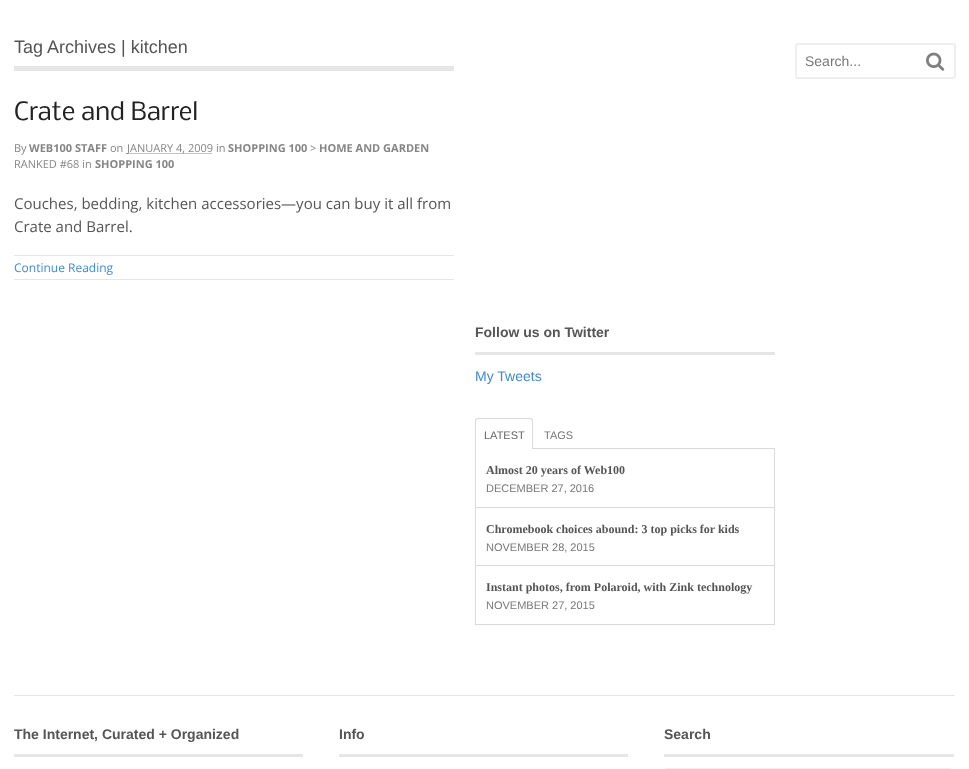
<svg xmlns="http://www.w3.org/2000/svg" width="969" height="769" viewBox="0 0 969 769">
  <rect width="100%" height="100%" fill="#ffffff"/>
  <rect x="14" y="66" width="440" height="5" fill="#e6e6e6"/>
  <text x="14" y="53" font-family="Liberation Sans" font-size="18" fill="#555555">Tag Archives | kitchen</text>
  <text x="14" y="120" font-family="Nobile" font-size="24" fill="#222222">Crate and Barrel</text>
  <text x="14" y="152" font-family="Open Sans" font-size="11" fill="#868686">By</text>
  <text x="29" y="152" font-family="Open Sans" font-size="11" font-weight="bold" fill="#868686">WEB100 STAFF</text>
  <text x="110" y="152" font-family="Open Sans" font-size="11" fill="#868686">on</text>
  <path d="M126.5 153.5H212.5" fill="none" stroke="#868686" stroke-dasharray="1 1"/>
  <text x="127" y="152" font-family="Open Sans" font-size="11" fill="#868686">JANUARY 4, 2009 in</text>
  <text x="228" y="152" font-family="Open Sans" font-size="11" font-weight="bold" fill="#868686">SHOPPING 100</text>
  <text x="310" y="152" font-family="Open Sans" font-size="11" fill="#868686">&gt;</text>
  <text x="319" y="152" font-family="Open Sans" font-size="11" font-weight="bold" fill="#868686">HOME AND GARDEN</text>
  <text x="14" y="168" font-family="Open Sans" font-size="11" fill="#868686">RANKED #68 in</text>
  <text x="95" y="168" font-family="Open Sans" font-size="11" font-weight="bold" fill="#868686">SHOPPING 100</text>
  <text x="14" y="209" font-family="Open Sans" font-size="15" fill="#555555">Couches, bedding, kitchen accessories—you can buy it all from</text>
  <text x="14" y="232" font-family="Open Sans" font-size="15" fill="#555555">Crate and Barrel.</text>
  <rect x="14" y="255" width="440" height="1" fill="#e6e6e6"/>
  <rect x="14" y="279" width="440" height="1" fill="#e6e6e6"/>
  <text x="14" y="272" font-family="Open Sans" font-size="12" fill="#428bca">Continue Reading</text>
  <rect x="475" y="352" width="300" height="3" fill="#e6e6e6"/>
  <text x="475" y="337" font-family="Liberation Sans" font-size="14" font-weight="bold" fill="#555555">Follow us on Twitter</text>
  <text x="475" y="381" font-family="Liberation Sans" font-size="14" fill="#428bca">My Tweets</text>
  <path d="M478 418H530C532 418 533 419 533 421V449H475V421C475 419 476 418 478 418ZM478 419H530C531 419 532 420 532 421V449H476V421C476 420 477 419 478 419Z" fill="#d9d9d9" fill-rule="evenodd"/>
  <text x="484" y="439" font-family="Liberation Sans" font-size="11" fill="#666666">LATEST</text>
  <text x="544" y="439" font-family="Liberation Sans" font-size="11" fill="#777777">TAGS</text>
  <rect x="533" y="448" width="242" height="1" fill="#d9d9d9"/>
  <rect x="475" y="624" width="300" height="1" fill="#d9d9d9"/>
  <rect x="774" y="449" width="1" height="175" fill="#d9d9d9"/>
  <rect x="475" y="507" width="300" height="1" fill="#d9d9d9"/>
  <rect x="475" y="449" width="1" height="59" fill="#d9d9d9"/>
  <text x="486" y="474" font-family="Liberation Serif" font-size="12" font-weight="bold" fill="#555555">Almost 20 years of Web100</text>
  <text x="486" y="492" font-family="Liberation Sans" font-size="11" fill="#777777">DECEMBER 27, 2016</text>
  <rect x="475" y="565" width="300" height="1" fill="#d9d9d9"/>
  <rect x="475" y="508" width="1" height="116" fill="#d9d9d9"/>
  <text x="486" y="533" font-family="Liberation Serif" font-size="12" font-weight="bold" fill="#555555">Chromebook choices abound: 3 top picks for kids</text>
  <text x="486" y="551" font-family="Liberation Sans" font-size="11" fill="#777777">NOVEMBER 28, 2015</text>
  <text x="486" y="591" font-family="Liberation Serif" font-size="12" font-weight="bold" fill="#555555">Instant photos, from Polaroid, with Zink technology</text>
  <text x="486" y="609" font-family="Liberation Sans" font-size="11" fill="#777777">NOVEMBER 27, 2015</text>
  <rect x="796" y="44" width="159" height="34" rx="2" fill="none" stroke="#efefef" stroke-width="2"/>
  <text x="805" y="66" font-family="Liberation Sans" font-size="14" fill="#777777">Search...</text>
  <image x="926" y="52" width="19" height="19" href="img1.png"/>
  <rect x="14" y="695" width="941" height="1" fill="#e6e6e6"/>
  <rect x="14" y="754" width="289" height="3" fill="#e6e6e6"/>
  <text x="14" y="739" font-family="Liberation Sans" font-size="14" font-weight="bold" fill="#555555">The Internet, Curated + Organized</text>
  <rect x="339" y="754" width="289" height="3" fill="#e6e6e6"/>
  <text x="339" y="739" font-family="Liberation Sans" font-size="14" font-weight="bold" fill="#555555">Info</text>
  <rect x="664" y="754" width="290" height="3" fill="#e6e6e6"/>
  <text x="664" y="739" font-family="Liberation Sans" font-size="14" font-weight="bold" fill="#555555">Search</text>
  <rect x="665" y="769" width="286" height="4" rx="2" fill="none" stroke="#efefef" stroke-width="2"/>
</svg>
